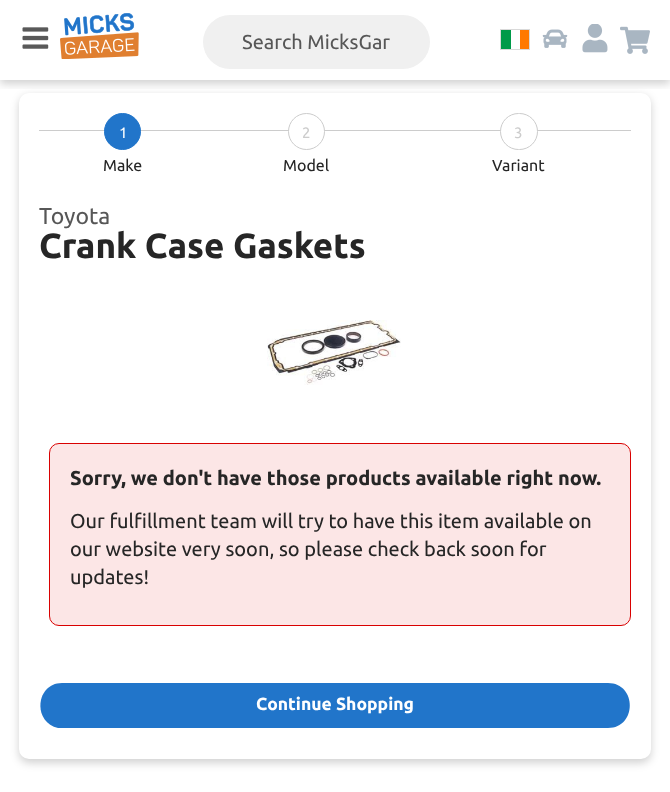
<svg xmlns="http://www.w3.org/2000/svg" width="670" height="792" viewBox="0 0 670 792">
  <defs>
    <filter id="blur1" x="-50%" y="-200%" width="200%" height="500%"><feGaussianBlur stdDeviation="4"/></filter>
    <clipPath id="clip1"><rect x="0" y="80" width="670" height="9"/></clipPath>
  </defs>
  <rect width="100%" height="100%" fill="#ffffff"/>
  <rect x="19" y="96" width="632" height="667" rx="10" fill="#000000" fill-opacity="0.18" filter="url(#blur1)"/>
  <rect x="19" y="93" width="632" height="666" rx="10" fill="#ffffff"/>
  <g clip-path="url(#clip1)">
    <rect x="0" y="4" width="670" height="80" fill="#000000" fill-opacity="0.18" filter="url(#blur1)"/>
  </g>
  <image x="22" y="27" width="27" height="22" href="img1.png"/>
  <image x="60" y="13" width="79" height="46" href="img2.png"/>
  <rect x="203" y="15" width="227" height="54" rx="27" fill="#f0f0f0"/>
  <text x="242" y="49" font-family="Ubuntu" font-size="20" fill="#575757">Search MicksGar</text>
  <rect x="501" y="30" width="10" height="19" fill="#009a49"/>
  <rect x="520" y="30" width="9" height="19" fill="#ff7900"/>
  <rect x="500.5" y="29.5" width="29" height="20" fill="none" stroke="#d9d9d9"/>
  <image x="542" y="29" width="26" height="19" href="img3.png"/>
  <image x="582" y="24" width="26" height="29" href="img4.png"/>
  <image x="620" y="26" width="30" height="28" href="img5.png"/>
  <rect x="39" y="130" width="592" height="1" fill="#cccccc"/>
  <circle cx="122.5" cy="131.5" r="18" fill="#2175ca" stroke="#2175ca"/>
  <text x="119" y="138" font-family="Ubuntu" font-size="15" fill="#ffffff">1</text>
  <text x="103" y="171" font-family="Ubuntu" font-size="16" fill="#262626">Make</text>
  <circle cx="306.5" cy="131.5" r="18" fill="#ffffff" stroke="#cccccc"/>
  <text x="302" y="138" font-family="Ubuntu" font-size="15" fill="#cccccc">2</text>
  <text x="283" y="171" font-family="Ubuntu" font-size="16" fill="#262626">Model</text>
  <rect x="500.5" y="113.5" width="37" height="36" rx="18" fill="#ffffff" stroke="#cccccc"/>
  <text x="514" y="138" font-family="Ubuntu" font-size="15" fill="#cccccc">3</text>
  <text x="492" y="171" font-family="Ubuntu" font-size="16" fill="#262626">Variant</text>
  <text x="39" y="224" font-family="Ubuntu" font-size="23" fill="#575757">Toyota</text>
  <text x="39" y="258" font-family="Ubuntu" font-size="35" font-weight="bold" fill="#262626">Crank Case Gaskets</text>
  <image x="267" y="320" width="134" height="65" href="img6.png"/>
  <rect x="49.5" y="443.5" width="581" height="182" rx="9.5" fill="#fce6e6" stroke="#d90101"/>
  <text x="70" y="485" font-family="Ubuntu" font-size="20" font-weight="bold" fill="#262626">Sorry, we don't have those products available right now.</text>
  <text x="70" y="528" font-family="Ubuntu" font-size="20" fill="#262626">Our fulfillment team will try to have this item available on</text>
  <text x="70" y="556" font-family="Ubuntu" font-size="20" fill="#262626">our website very soon, so please check back soon for</text>
  <text x="70" y="584" font-family="Ubuntu" font-size="20" fill="#262626">updates!</text>
  <path d="M62 683C36 683 32 722 58 728H62H608C637 728 637 683 608 683Z" fill="#2175ca"/>
  <text x="256" y="710" font-family="Ubuntu" font-size="17.5" font-weight="bold" fill="#ffffff">Continue Shopping</text>
</svg>
